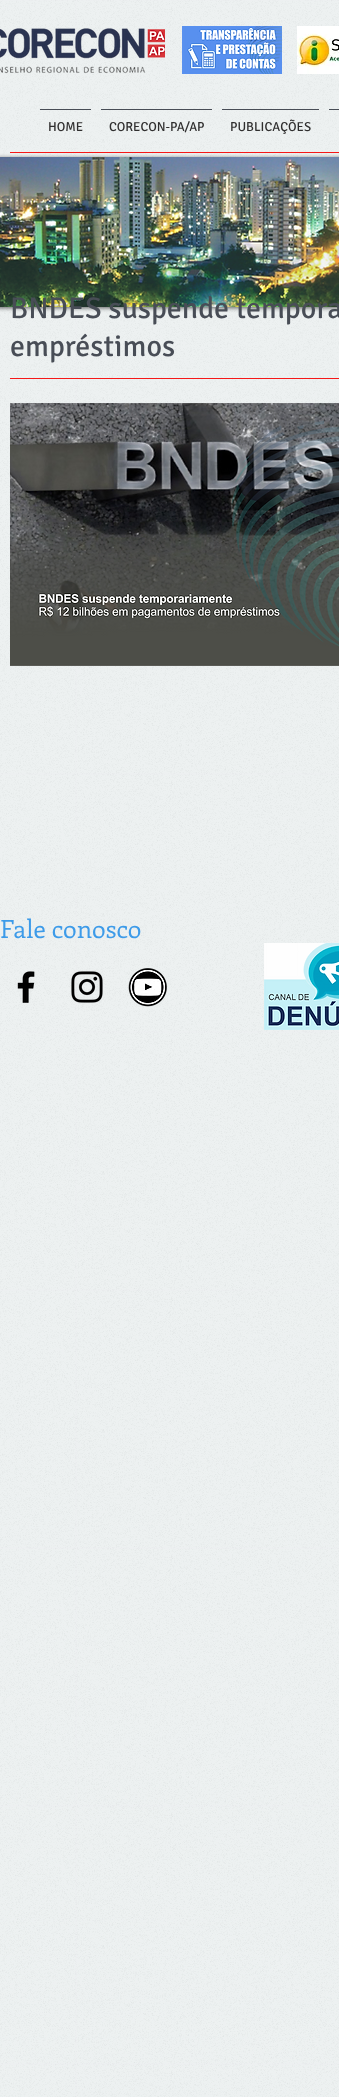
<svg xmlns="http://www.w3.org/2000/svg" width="339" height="2097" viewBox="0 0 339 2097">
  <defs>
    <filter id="blur1" x="-50%" y="-200%" width="200%" height="500%"><feGaussianBlur stdDeviation="2"/></filter>
  </defs>
  <rect width="100%" height="100%" fill="#ecf0f1"/>
  <image x="0" y="0" width="339" height="2097" href="img1.png"/>
  <image x="0" y="28" width="165" height="46" href="img2.png"/>
  <image x="182" y="26" width="100" height="48" href="img3.png"/>
  <image x="297" y="26" width="42" height="48" href="img4.png"/>
  <rect x="329" y="109" width="10" height="1" fill="#484d56"/>
  <rect x="40" y="109" width="51" height="1" fill="#484d56"/>
  <text x="48" y="131" font-family="Signika" font-size="13" fill="#2f2e2e">HOME</text>
  <rect x="101" y="109" width="111" height="1" fill="#484d56"/>
  <text x="109" y="131" font-family="Signika" font-size="13" fill="#2f2e2e">CORECON-PA/AP</text>
  <rect x="222" y="109" width="97" height="1" fill="#484d56"/>
  <text x="230" y="131" font-family="Signika" font-size="13" fill="#2f2e2e">PUBLICAÇÕES</text>
  <rect x="10" y="152" width="329" height="1" fill="#f51818"/>
  <rect x="-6" y="158" width="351" height="150" fill="#000000" fill-opacity="0.6" filter="url(#blur1)"/>
  <image x="0" y="157" width="339" height="150" href="img5.png"/>
  <text x="10" y="318" font-family="Signika" font-size="30" fill="#484d56">BNDES suspende tempora</text>
  <text x="10" y="356" font-family="Signika" font-size="30" fill="#484d56">empréstimos</text>
  <rect x="10" y="378" width="329" height="1" fill="#f51818"/>
  <image x="10" y="403" width="329" height="263" href="img6.png"/>
  <text x="0" y="938" font-family="Enriqueta" font-size="25" fill="#3d9be9">Fale conosco</text>
  <image x="17" y="971" width="18" height="32" href="img7.png"/>
  <image x="71" y="971" width="32" height="32" href="img8.png"/>
  <image x="128" y="968" width="39" height="39" href="img9.png"/>
  <image x="264" y="943" width="75" height="87" href="img10.png"/>
</svg>
